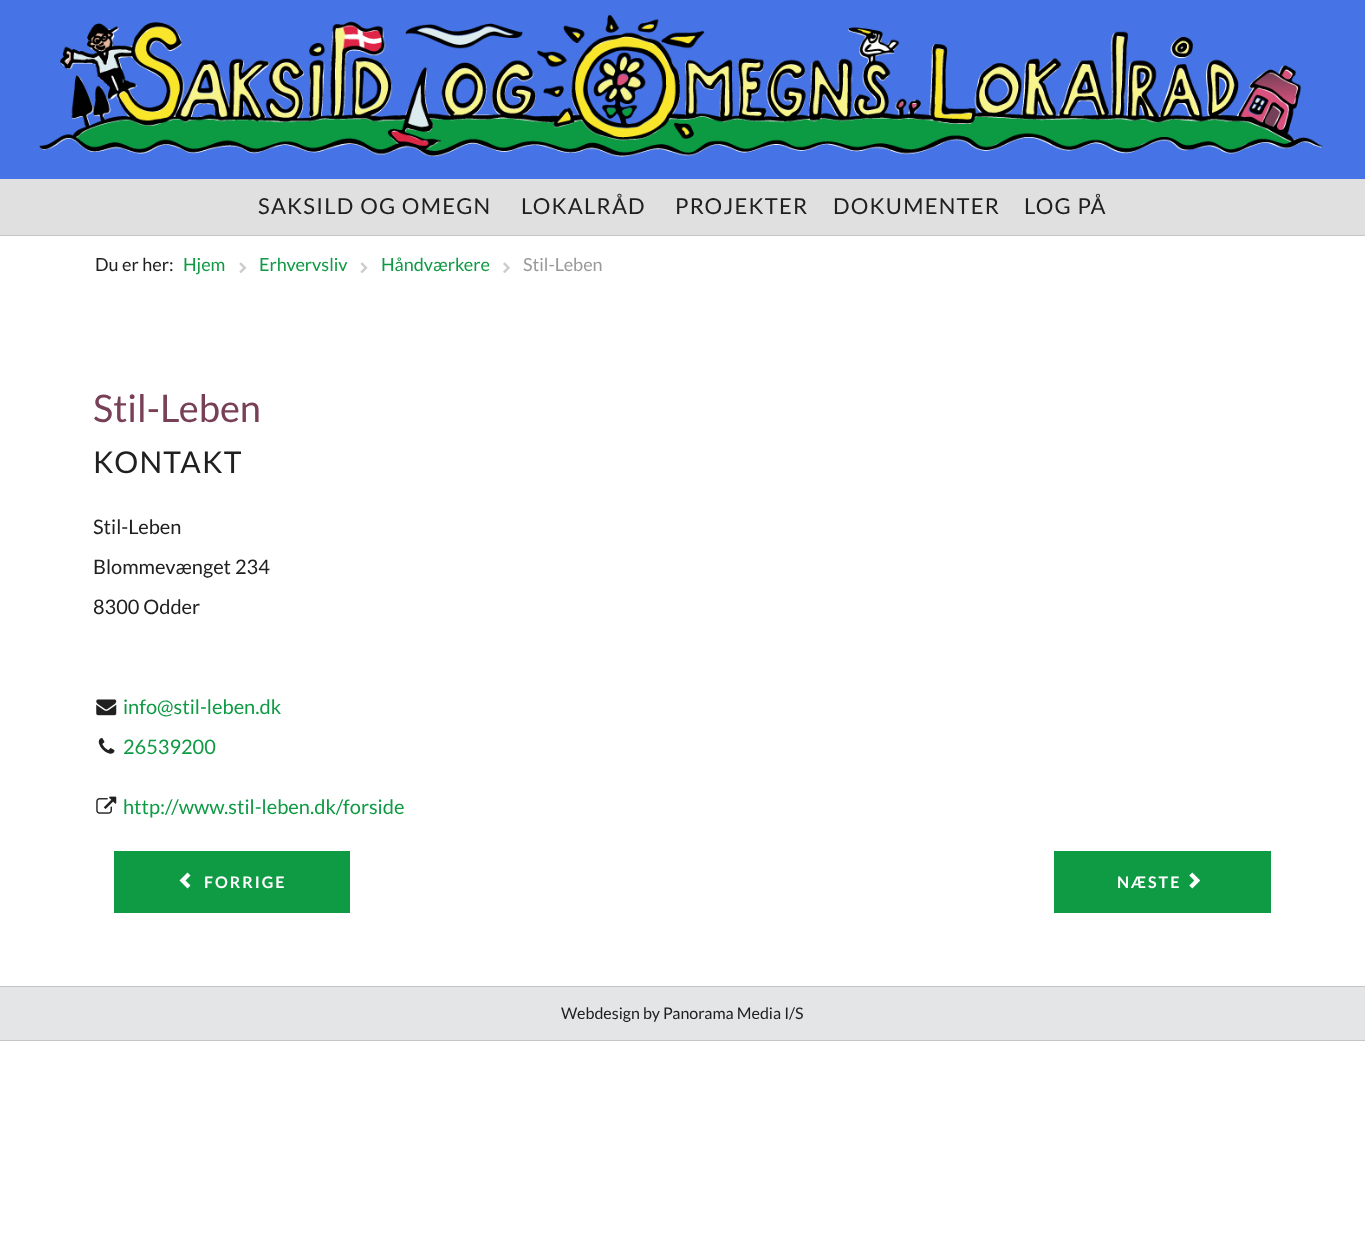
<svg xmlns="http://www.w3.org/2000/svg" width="1365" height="1250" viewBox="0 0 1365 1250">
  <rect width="100%" height="100%" fill="#ffffff"/>
  <rect x="0" y="0" width="1365" height="179" fill="#4673e6"/>
  <image x="39" y="15" width="1284" height="142" href="img1.png"/>
  <rect x="0" y="179" width="1365" height="56" fill="#e0e0e0"/>
  <rect x="0" y="235" width="1365" height="1" fill="#c4c5c7"/>
  <text x="258" y="214" font-family="Lato" font-size="22" letter-spacing="1.25" fill="#202020">SAKSILD OG OMEGN</text>
  <text x="521" y="214" font-family="Lato" font-size="22" letter-spacing="1.25" fill="#202020">LOKALRÅD</text>
  <text x="675" y="214" font-family="Lato" font-size="22" letter-spacing="1.25" fill="#202020">PROJEKTER</text>
  <text x="833" y="214" font-family="Lato" font-size="22" letter-spacing="1.25" fill="#202020">DOKUMENTER</text>
  <text x="1024" y="214" font-family="Lato" font-size="22" letter-spacing="1.25" fill="#202020">LOG PÅ</text>
  <text x="95" y="271" font-family="Lato" font-size="18" fill="#202020">Du er her:</text>
  <text x="183" y="271" font-family="Lato" font-size="18" fill="#0f9a44">Hjem</text>
  <image x="239" y="262" width="8" height="11" href="img2.png"/>
  <text x="259" y="271" font-family="Lato" font-size="18" fill="#0f9a44">Erhvervsliv</text>
  <image x="360" y="262" width="8" height="11" href="img3.png"/>
  <text x="381" y="271" font-family="Lato" font-size="18" fill="#0f9a44">Håndværkere</text>
  <image x="503" y="262" width="7" height="11" href="img4.png"/>
  <text x="523" y="271" font-family="Lato" font-size="18" fill="#999999">Stil-Leben</text>
  <text x="93" y="422" font-family="Lato" font-size="38" fill="#774056">Stil-Leben</text>
  <text x="93" y="473" font-family="Lato" font-size="30" letter-spacing="1.25" fill="#202020">KONTAKT</text>
  <text x="93" y="534" font-family="Lato" font-size="20" fill="#202020">Stil-Leben</text>
  <text x="93" y="574" font-family="Lato" font-size="20" fill="#202020">Blommevænget 234</text>
  <text x="93" y="614" font-family="Lato" font-size="20" fill="#202020">8300 Odder</text>
  <image x="96" y="699" width="21" height="17" href="img5.png"/>
  <text x="123" y="714" font-family="Lato" font-size="20" fill="#0f9a44">info@stil-leben.dk</text>
  <image x="98" y="738" width="17" height="16" href="img6.png"/>
  <text x="123" y="754" font-family="Lato" font-size="20" fill="#0f9a44">26539200</text>
  <image x="96" y="796" width="21" height="18" href="img7.png"/>
  <text x="123" y="814" font-family="Lato" font-size="20" fill="#0f9a44">http://www.stil-leben.dk/forside</text>
  <rect x="114" y="851" width="236" height="62" fill="#0f9a44"/>
  <image x="179" y="872" width="12" height="17" href="img8.png"/>
  <text x="204" y="888" font-family="Lato" font-size="16" font-weight="bold" letter-spacing="2" fill="#ffffff">FORRIGE</text>
  <rect x="1054" y="851" width="217" height="62" fill="#0f9a44"/>
  <text x="1117" y="888" font-family="Lato" font-size="16" font-weight="bold" letter-spacing="2" fill="#ffffff">NÆSTE</text>
  <image x="1189" y="872" width="12" height="17" href="img9.png"/>
  <rect x="0" y="987" width="1365" height="53" fill="#e4e5e7"/>
  <rect x="0" y="986" width="1365" height="1" fill="#c4c5c7"/>
  <rect x="0" y="1040" width="1365" height="1" fill="#c4c5c7"/>
  <text x="561" y="1019" font-family="Lato" font-size="16" fill="#202020">Webdesign by Panorama Media I/S</text>
</svg>
